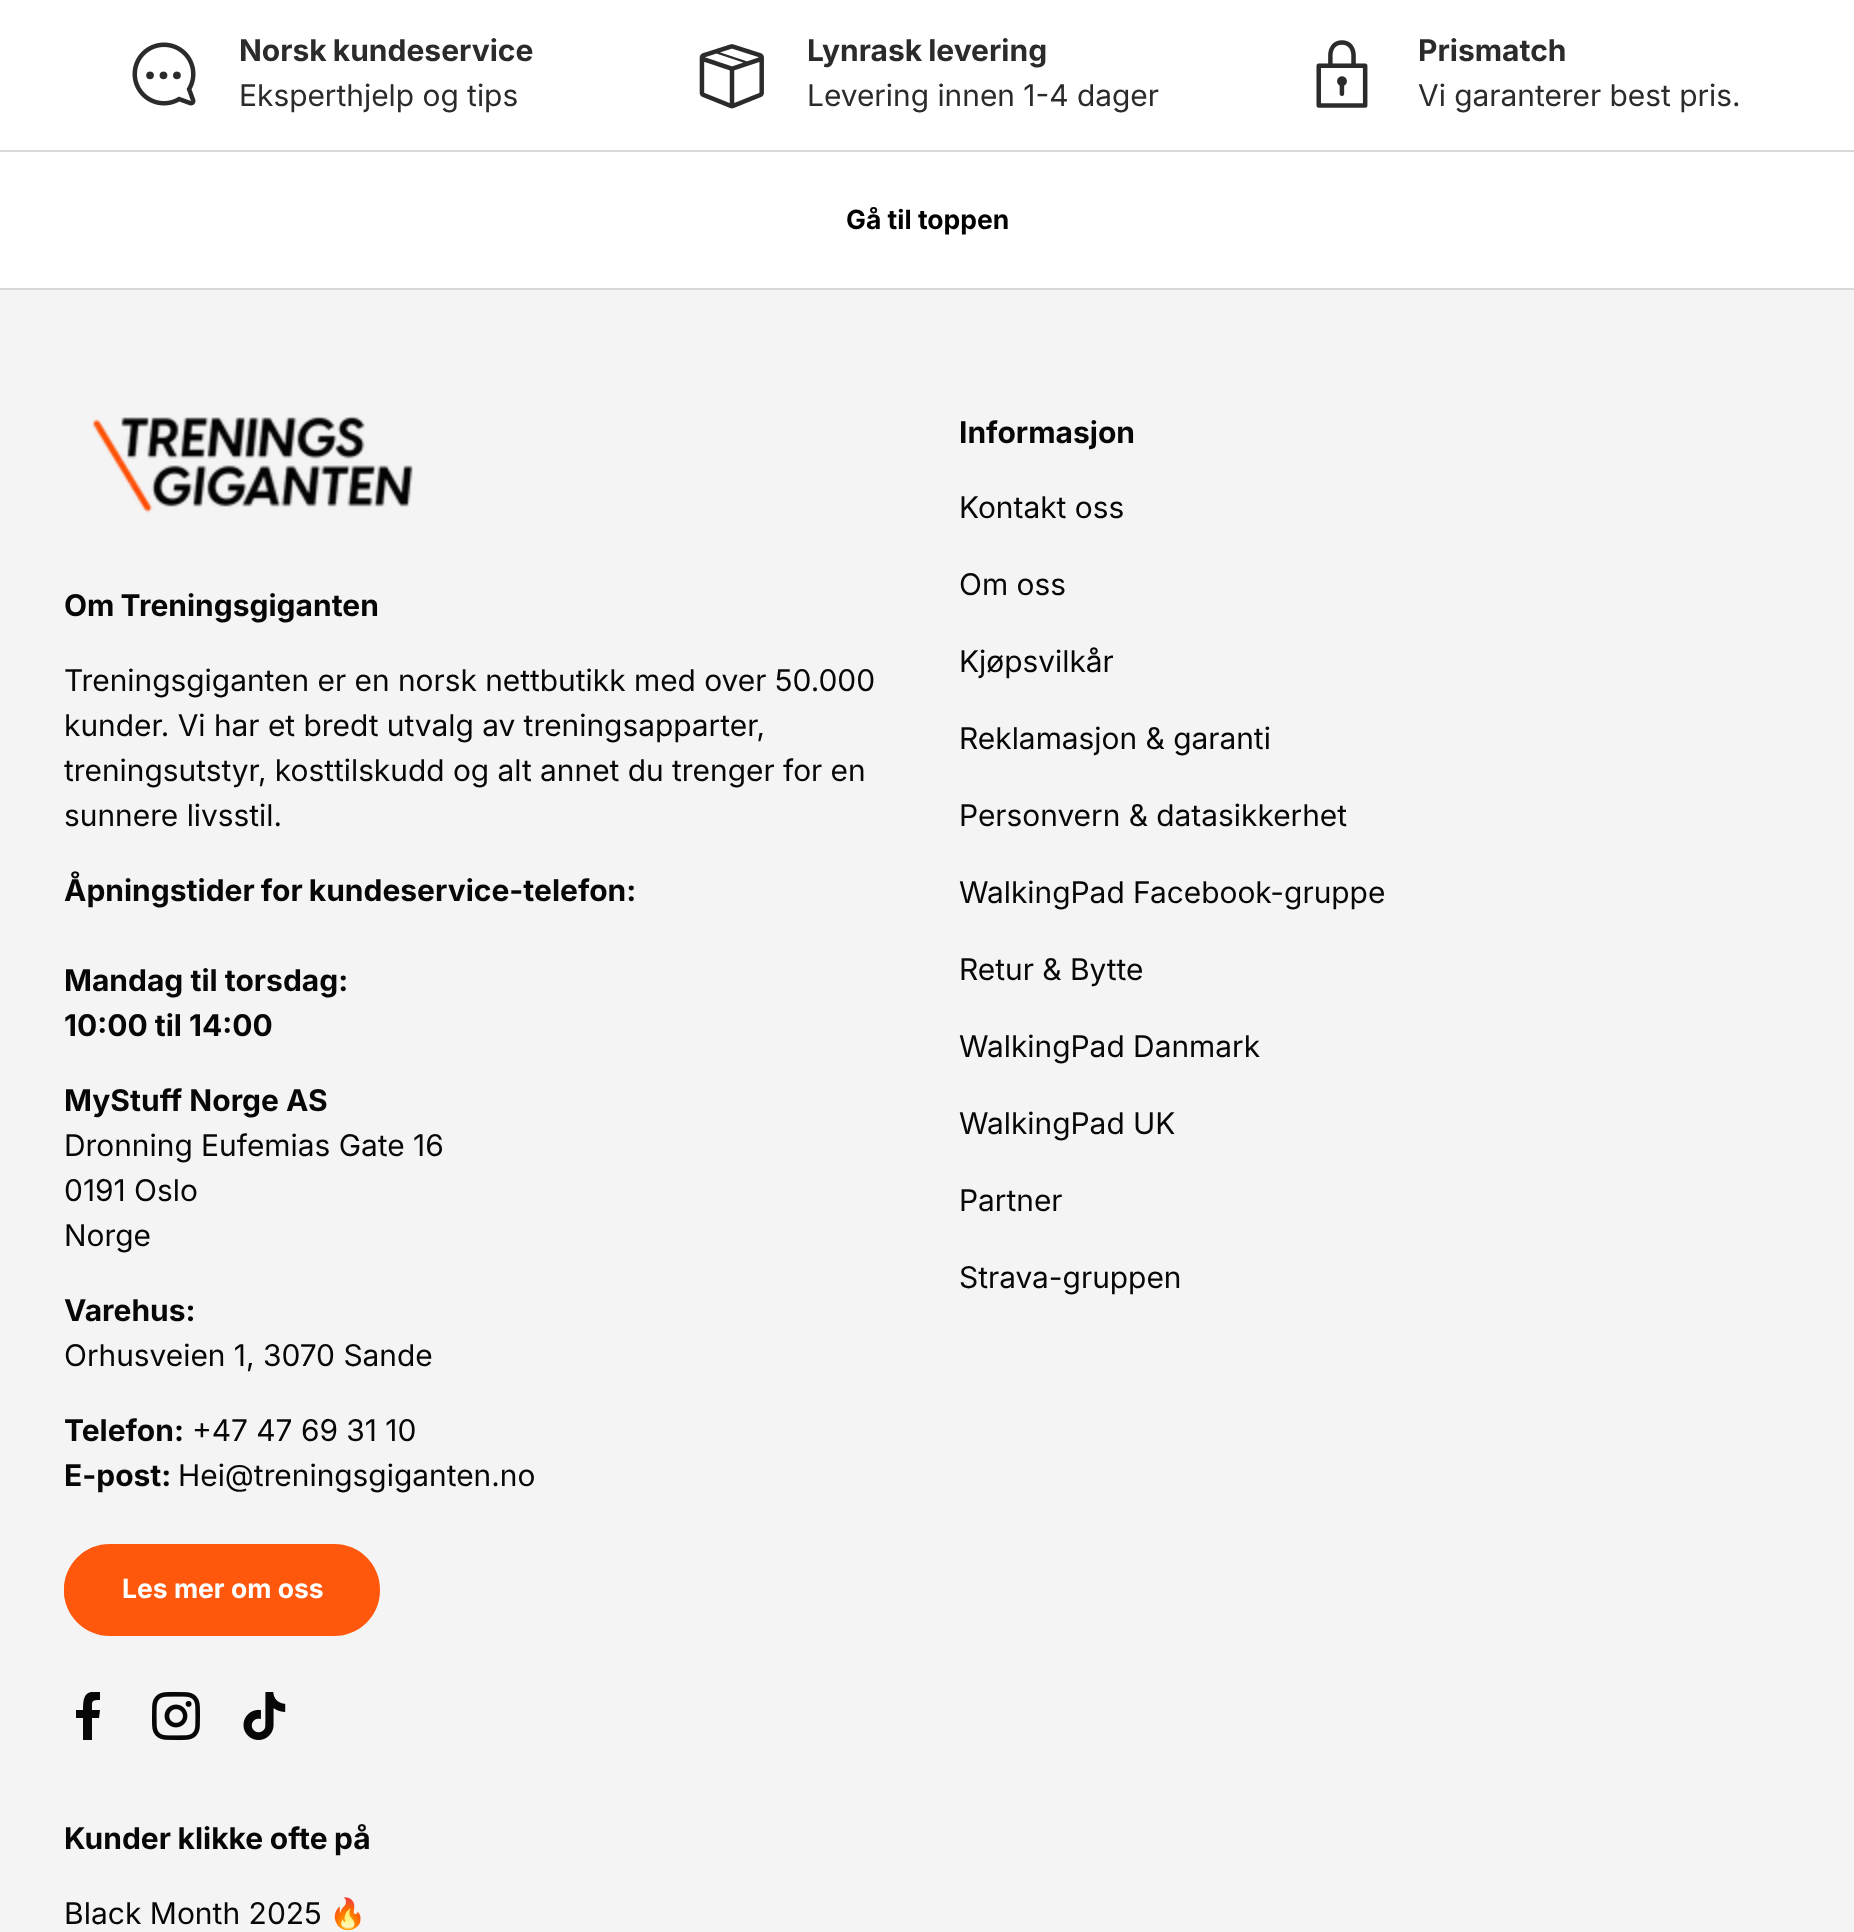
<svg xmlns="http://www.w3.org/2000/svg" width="1854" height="1932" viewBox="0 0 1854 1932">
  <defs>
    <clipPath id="clip1"><rect x="64" y="1544" width="316" height="92" rx="46"/></clipPath>
    <linearGradient id="g1" gradientUnits="userSpaceOnUse" x1="-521" y1="1481" x2="357" y2="1699"><stop offset="0.6" stop-color="#ff7c40"/><stop offset="0.6" stop-color="#ff580d"/><stop offset="1" stop-color="#ff580d"/></linearGradient>
    <clipPath id="clip2"><rect x="76" y="1692" width="24" height="48"/></clipPath>
  </defs>
  <rect width="100%" height="100%" fill="#ffffff"/>
  <image x="132" y="42" width="64" height="64" href="img1.png"/>
  <text x="239" y="61" word-spacing="-1" font-family="Inter" font-size="30" font-weight="bold" fill="#2a2b2a">Norsk kundeservice</text>
  <text x="239" y="106" font-family="Inter" font-size="30" fill="#2a2b2a">Eksperthjelp og tips</text>
  <image x="699" y="44" width="65" height="65" href="img2.png"/>
  <text x="807" y="61" word-spacing="-1" font-family="Inter" font-size="30" font-weight="bold" fill="#2a2b2a">Lynrask levering</text>
  <text x="807" y="106" font-family="Inter" font-size="30" fill="#2a2b2a">Levering innen 1-4 dager</text>
  <image x="1316" y="40" width="52" height="68" href="img3.png"/>
  <text x="1418" y="61" font-family="Inter" font-size="30" font-weight="bold" fill="#2a2b2a">Prismatch</text>
  <text x="1418" y="106" font-family="Inter" font-size="30" fill="#2a2b2a">Vi garanterer best pris.</text>
  <rect x="0" y="150" width="1854" height="2" fill="#d9d9d9"/>
  <rect x="0" y="288" width="1854" height="2" fill="#d9d9d9"/>
  <text x="846" y="229" font-family="Inter" font-size="26.5" font-weight="bold" fill="#000000">Gå til toppen</text>
  <rect x="0" y="290" width="1854" height="1642" fill="#f4f4f4"/>
  <image x="91" y="416" width="322" height="97" href="img4.png"/>
  <text x="64" y="616" word-spacing="-1" font-family="Inter" font-size="30" font-weight="bold" fill="#070707">Om Treningsgiganten</text>
  <text x="64" y="691" font-family="Inter" font-size="30" fill="#070707">Treningsgiganten er en norsk nettbutikk med over 50.000</text>
  <text x="64" y="736" font-family="Inter" font-size="30" fill="#070707">kunder. Vi har et bredt utvalg av treningsapparter,</text>
  <text x="64" y="781" font-family="Inter" font-size="30" fill="#070707">treningsutstyr, kosttilskudd og alt annet du trenger for en</text>
  <text x="64" y="826" font-family="Inter" font-size="30" fill="#070707">sunnere livsstil.</text>
  <text x="64" y="901" word-spacing="-1" font-family="Inter" font-size="30" font-weight="bold" fill="#070707">Åpningstider for kundeservice-telefon:</text>
  <text x="64" y="991" font-family="Inter" font-size="30" font-weight="bold" fill="#070707">Mandag til torsdag:</text>
  <text x="64" y="1036" font-family="Inter" font-size="30" font-weight="bold" fill="#070707">10:00 til 14:00</text>
  <text x="64" y="1111" font-family="Inter" font-size="30" font-weight="bold" fill="#070707">MyStuff Norge AS</text>
  <text x="64" y="1156" font-family="Inter" font-size="30" fill="#070707">Dronning Eufemias Gate 16</text>
  <text x="64" y="1201" font-family="Inter" font-size="30" fill="#070707">0191 Oslo</text>
  <text x="64" y="1246" font-family="Inter" font-size="30" fill="#070707">Norge</text>
  <text x="64" y="1321" font-family="Inter" font-size="30" font-weight="bold" fill="#070707">Varehus:</text>
  <text x="64" y="1366" font-family="Inter" font-size="30" fill="#070707">Orhusveien 1, 3070 Sande</text>
  <text x="64" y="1441" font-family="Inter" font-size="30" font-weight="bold" fill="#070707">Telefon:</text>
  <text x="192" y="1441" font-family="Inter" font-size="30" fill="#070707">+47 47 69 31 10</text>
  <text x="64" y="1486" font-family="Inter" font-size="30" font-weight="bold" fill="#070707">E-post:</text>
  <text x="178" y="1486" font-family="Inter" font-size="30" fill="#070707">Hei@treningsgiganten.no</text>
  <g clip-path="url(#clip1)">
    <rect x="64" y="1550" width="310" height="80" fill="url(#g1)"/>
  </g>
  <rect x="67" y="1547" width="310" height="86" rx="43" fill="none" stroke="#ff580d" stroke-width="6"/>
  <text x="122" y="1598" font-family="Inter" font-size="26.5" font-weight="bold" fill="#ffffff">Les mer om oss</text>
  <g clip-path="url(#clip2)">
    <path d="M92 1718H99L100 1710H92C92 1701 91 1700 100 1700V1692C85 1690 83 1696 83 1710H76V1718H83V1740H92Z" fill="#070707"/>
  </g>
  <image x="152" y="1692" width="48" height="48" href="img5.png"/>
  <image x="243" y="1692" width="43" height="48" href="img6.png"/>
  <text x="959" y="443" font-family="Inter" font-size="30" font-weight="bold" fill="#070707">Informasjon</text>
  <text x="959" y="518" font-family="Inter" font-size="30" fill="#070707">Kontakt oss</text>
  <text x="959" y="595" font-family="Inter" font-size="30" fill="#070707">Om oss</text>
  <text x="959" y="672" font-family="Inter" font-size="30" fill="#070707">Kjøpsvilkår</text>
  <text x="959" y="749" font-family="Inter" font-size="30" fill="#070707">Reklamasjon &amp; garanti</text>
  <text x="959" y="826" font-family="Inter" font-size="30" fill="#070707">Personvern &amp; datasikkerhet</text>
  <text x="959" y="903" font-family="Inter" font-size="30" fill="#070707">WalkingPad Facebook-gruppe</text>
  <text x="959" y="980" font-family="Inter" font-size="30" fill="#070707">Retur &amp; Bytte</text>
  <text x="959" y="1057" font-family="Inter" font-size="30" fill="#070707">WalkingPad Danmark</text>
  <text x="959" y="1134" font-family="Inter" font-size="30" fill="#070707">WalkingPad UK</text>
  <text x="959" y="1211" font-family="Inter" font-size="30" fill="#070707">Partner</text>
  <text x="959" y="1288" font-family="Inter" font-size="30" fill="#070707">Strava-gruppen</text>
  <text x="64" y="1849" word-spacing="-0.5" font-family="Inter" font-size="30" font-weight="bold" fill="#070707">Kunder klikke ofte på</text>
  <text x="64" y="1924" font-family="'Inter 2'" font-size="30" fill="#070707">Black Month 2025</text>
  <text x="329" y="1924" font-family="Noto Color Emoji" font-size="30" fill="#070707">🔥</text>
</svg>
